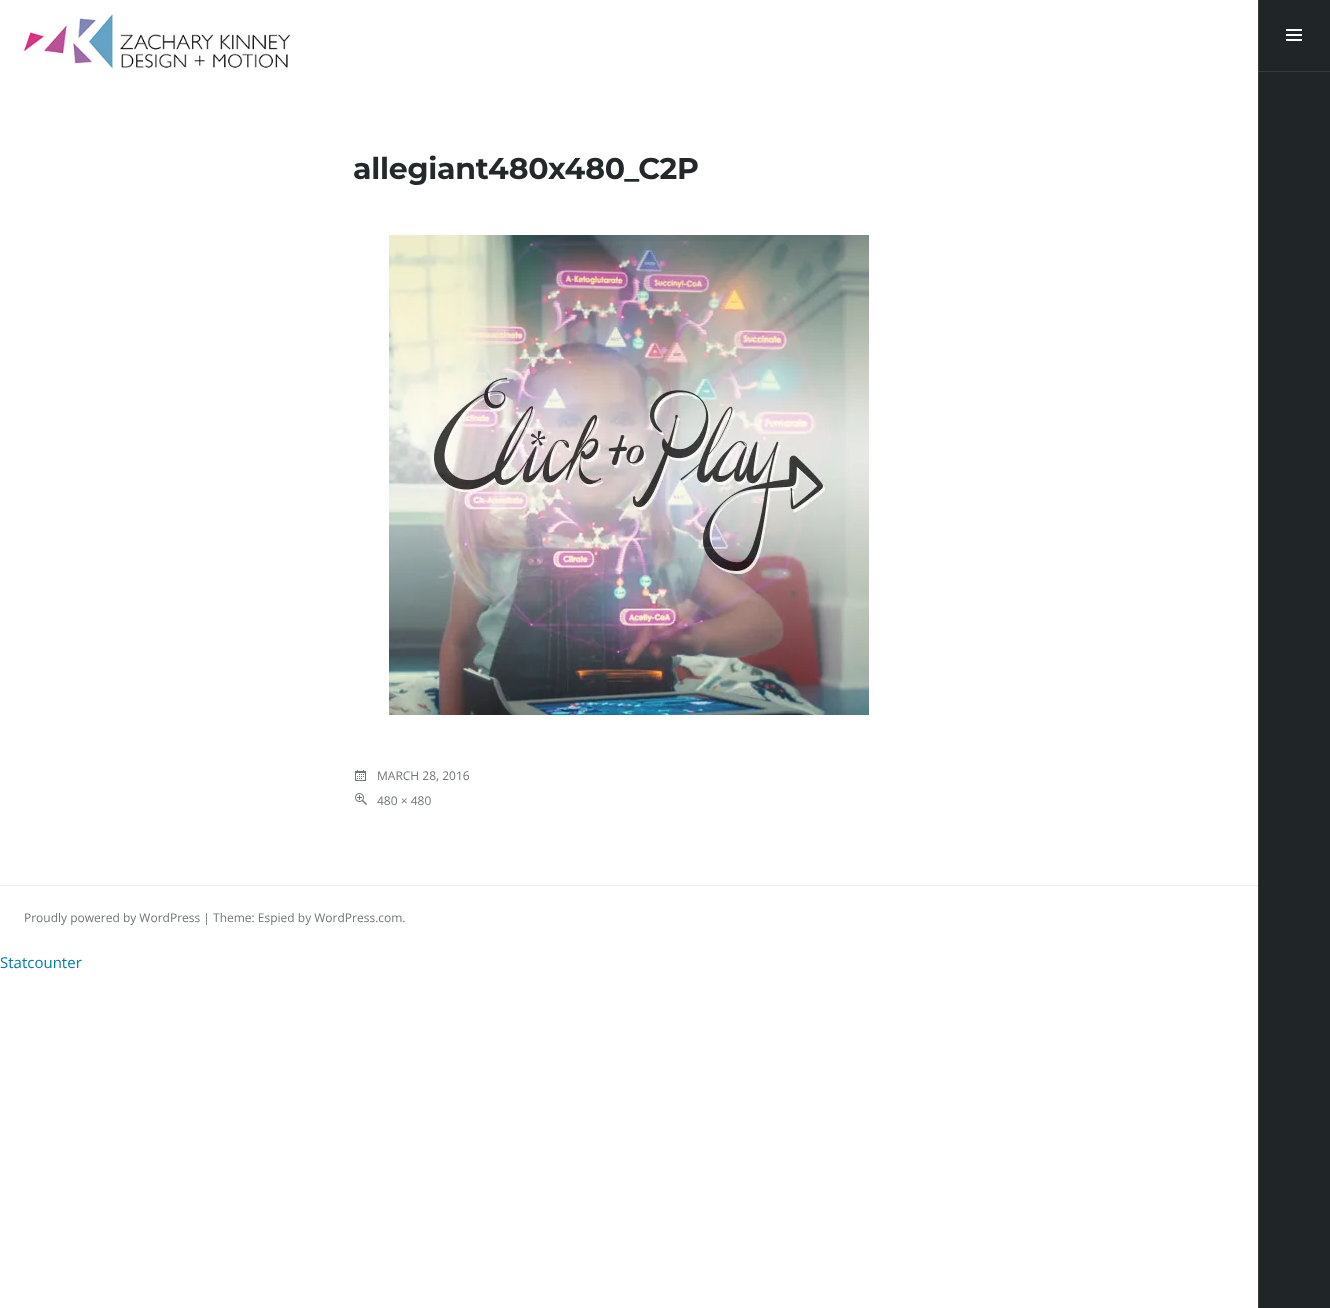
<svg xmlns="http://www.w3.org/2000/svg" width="1330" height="1308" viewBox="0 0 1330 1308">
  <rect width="100%" height="100%" fill="#ffffff"/>
  <image x="23" y="14" width="268" height="55" href="img1.png"/>
  <rect x="1259" y="0" width="71" height="1308" fill="#202628"/>
  <image x="1286" y="29" width="16" height="12" href="img2.png"/>
  <text x="353" y="179" font-family="Montserrat" font-size="30" font-weight="bold" letter-spacing="-0.25" fill="#23292b">allegiant480x480_C2P</text>
  <image x="389" y="235" width="480" height="480" href="img3.png"/>
  <image x="355" y="770" width="11" height="11" href="img4.png"/>
  <text x="377" y="780" font-family="Open Sans" font-size="12" fill="#737678">MARCH 28, 2016</text>
  <image x="355" y="793" width="12" height="12" href="img5.png"/>
  <text x="377" y="805" font-family="Open Sans" font-size="12" fill="#737678">480 × 480</text>
  <rect x="0" y="885" width="1258" height="1" fill="#ededed"/>
  <text x="24" y="922" font-family="Open Sans" font-size="12" fill="#737678">Proudly powered by WordPress | Theme: Espied by WordPress.com.</text>
  <rect x="1258" y="71" width="72" height="1" fill="#363c3e"/>
  <rect x="1258" y="0" width="1" height="1308" fill="#363c3e"/>
  <rect x="1258" y="71" width="1" height="1" fill="#4a5051"/>
  <text x="0" y="968" font-family="Open Sans" font-size="15" fill="#007cad">Statcounter</text>
</svg>
